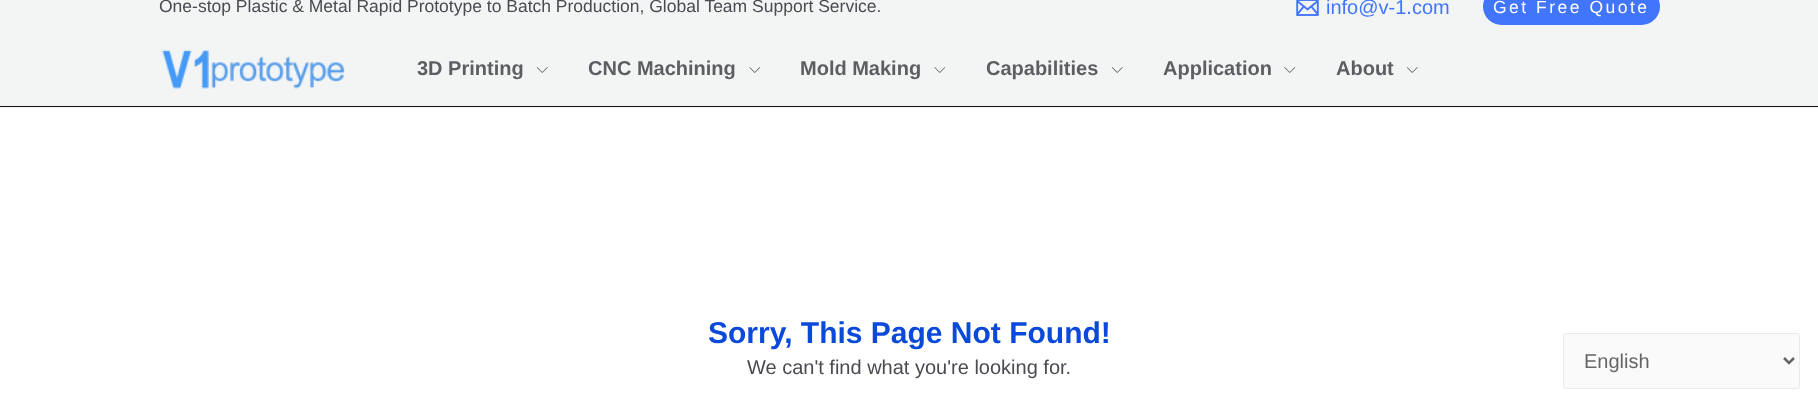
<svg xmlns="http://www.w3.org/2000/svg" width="1818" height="407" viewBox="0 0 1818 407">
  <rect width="100%" height="100%" fill="#ffffff"/>
  <rect x="0" y="0" width="1818" height="108" fill="#f3f5f5"/>
  <text x="159" y="12" font-family="Liberation Sans" font-size="17.5" fill="#494b51">One-stop Plastic &amp; Metal Rapid Prototype to Batch Production, Global Team Support Service.</text>
  <image x="1296" y="0" width="23" height="16" href="img1.png"/>
  <text x="1326" y="14" font-family="Liberation Sans" font-size="20" fill="#4175fc">info@v-1.com</text>
  <rect x="1483" y="-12" width="177" height="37" rx="18.5" fill="#4175fc"/>
  <text x="1493" y="13" font-family="Liberation Sans" font-size="17.5" letter-spacing="2.5" fill="#ffffff">Get Free Quote</text>
  <rect x="0" y="106" width="1818" height="1" fill="#141414"/>
  <image x="162" y="49" width="183" height="40" href="img2.png"/>
  <text x="417" y="75" font-family="Liberation Sans" font-size="20" font-weight="bold" fill="#5b5f62">3D Printing</text>
  <image x="536" y="67" width="12" height="6" href="img3.png"/>
  <text x="588" y="75" font-family="Liberation Sans" font-size="20" font-weight="bold" fill="#5b5f62">CNC Machining</text>
  <image x="749" y="67" width="12" height="6" href="img4.png"/>
  <text x="800" y="75" font-family="Liberation Sans" font-size="20" font-weight="bold" fill="#5b5f62">Mold Making</text>
  <image x="934" y="67" width="12" height="6" href="img4.png"/>
  <text x="986" y="75" font-family="Liberation Sans" font-size="20" font-weight="bold" fill="#5b5f62">Capabilities</text>
  <image x="1111" y="67" width="12" height="6" href="img3.png"/>
  <text x="1163" y="75" font-family="Liberation Sans" font-size="20" font-weight="bold" fill="#5b5f62">Application</text>
  <image x="1284" y="67" width="12" height="6" href="img4.png"/>
  <text x="1336" y="75" font-family="Liberation Sans" font-size="20" font-weight="bold" fill="#5b5f62">About</text>
  <image x="1406" y="67" width="12" height="6" href="img3.png"/>
  <text x="708" y="343" font-family="Liberation Sans" font-size="30" font-weight="bold" fill="#0b49da">Sorry, This Page Not Found!</text>
  <text x="747" y="374" font-family="Liberation Sans" font-size="20" fill="#494b51">We can't find what you're looking for.</text>
  <rect x="1563.5" y="333.5" width="236" height="55" rx="2" fill="#fafafa" stroke="#eaeaea"/>
  <path d="M1784 358L1789 363L1794 358" fill="none" stroke="#666666" stroke-width="2.5"/>
  <text x="1584" y="368" font-family="Liberation Sans" font-size="20" fill="#666666">English</text>
</svg>
